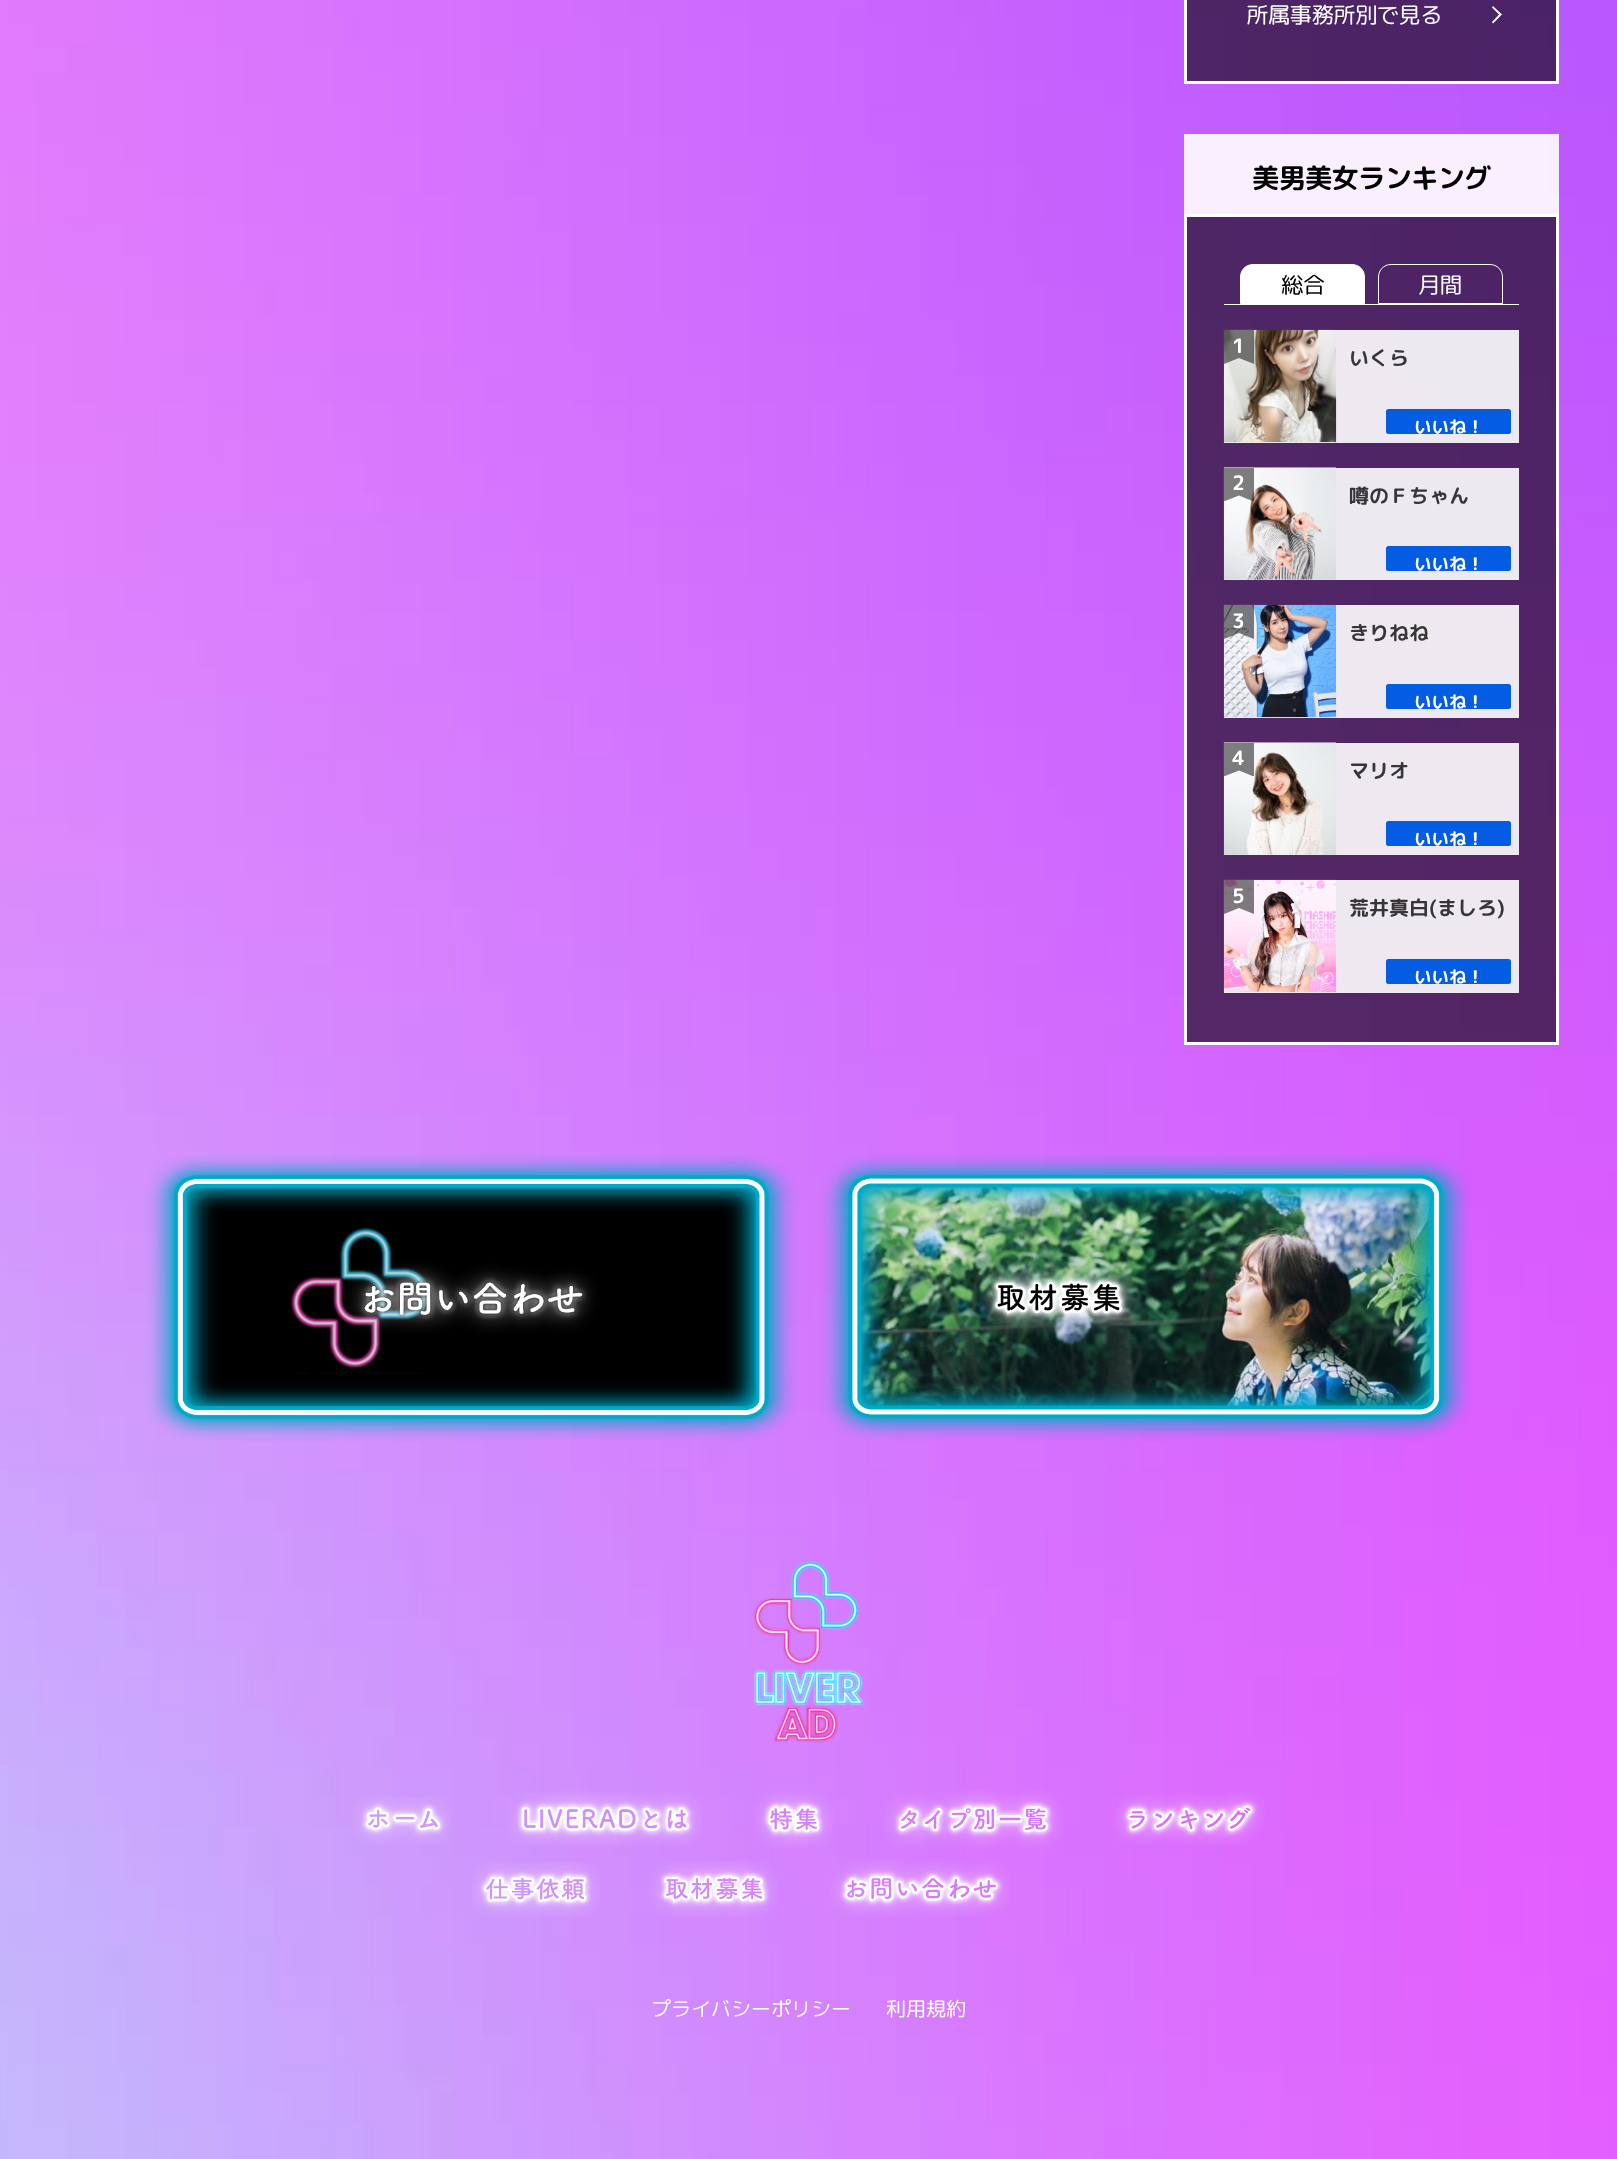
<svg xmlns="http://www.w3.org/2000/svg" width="1617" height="2159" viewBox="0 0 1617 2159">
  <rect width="100%" height="100%" fill="#ffffff"/>
  <image x="0" y="0" width="1617" height="2159" href="img1.png"/>
  <rect x="1185.5" y="-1.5" width="372" height="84" fill="#000000" fill-opacity="0.6" stroke="#ffffff" stroke-width="3"/>
  <text x="1246" y="23" font-family="'Rounded Mplus 1c'" font-size="22.5" letter-spacing="-0.75" fill="#ffffff">所属事務所別で見る</text>
  <path d="M1493 6L1492 7.5L1499 14.5L1492 22L1493 23.5L1502 14.5Z" fill="#ffffff"/>
  <rect x="1184" y="134" width="375" height="80" fill="#ffffff" fill-opacity="0.9"/>
  <text x="1252" y="188" font-family="'Rounded Mplus 1c Bold'" font-size="27.5" font-weight="bold" letter-spacing="-1" fill="#000000">美男美女ランキング</text>
  <rect x="1185.5" y="215.5" width="372" height="828" fill="#000000" fill-opacity="0.6" stroke="#ffffff" stroke-width="3"/>
  <rect x="1224" y="304" width="295" height="1" fill="#ffffff"/>
  <path d="M1253 264.5H1352C1359 264.5 1364.5 270 1364.5 277V303.5H1240.5V277C1240.5 270 1246 264.5 1253 264.5Z" fill="#ffffff" stroke="#ffffff"/>
  <text x="1281" y="293" font-family="'Rounded Mplus 1c'" font-size="22.5" letter-spacing="-0.75" fill="#000000">総合</text>
  <path d="M1391 264.5H1490C1497 264.5 1502.5 270 1502.5 277V303.5H1378.5V277C1378.5 270 1384 264.5 1391 264.5Z" fill="none" stroke="#ffffff"/>
  <text x="1418" y="293" font-family="'Rounded Mplus 1c'" font-size="22.5" letter-spacing="-0.75" fill="#ffffff">月間</text>
  <rect x="1224" y="330" width="295" height="113" fill="#ffffff" fill-opacity="0.9"/>
  <image x="1223" y="329" width="114" height="114" href="img2.png"/>
  <path d="M1224 364V330H1254V364L1239 358Z" fill="#000000" fill-opacity="0.5"/>
  <text x="1232" y="353" font-family="'Rounded Mplus 1c Bold'" font-size="20" font-weight="bold" fill="#ffffff">1</text>
  <text x="1349" y="365" font-family="'Rounded Mplus 1c Bold'" font-size="20" font-weight="bold" fill="#363636">いくら</text>
  <rect x="1386" y="409" width="125" height="25" rx="2.5" fill="#035ce2"/>
  <text x="1414" y="433" font-family="'Rounded Mplus 1c Bold'" font-size="17.5" font-weight="bold" fill="#ffffff">いいね！</text>
  <rect x="1224" y="468" width="295" height="112" fill="#ede9f0"/>
  <image x="1223" y="467" width="114" height="113" href="img3.png"/>
  <path d="M1224 468H1254V501H1252.5L1239 495.5L1225 501H1224Z" fill="#000000" fill-opacity="0.5"/>
  <text x="1232" y="490" font-family="'Rounded Mplus 1c Bold'" font-size="20" font-weight="bold" fill="#ffffff">2</text>
  <text x="1349" y="503" font-family="'Rounded Mplus 1c Bold'" font-size="20" font-weight="bold" fill="#363636">噂のＦちゃん</text>
  <rect x="1386" y="546" width="125" height="25" rx="2.5" fill="#035ce2"/>
  <text x="1414" y="570" font-family="'Rounded Mplus 1c Bold'" font-size="17.5" font-weight="bold" fill="#ffffff">いいね！</text>
  <rect x="1224" y="605" width="295" height="113" fill="#ffffff" fill-opacity="0.9"/>
  <image x="1223" y="604" width="114" height="114" href="img4.png"/>
  <path d="M1224 639V605H1254V639L1239 633Z" fill="#000000" fill-opacity="0.5"/>
  <text x="1232" y="628" font-family="'Rounded Mplus 1c Bold'" font-size="20" font-weight="bold" fill="#ffffff">3</text>
  <text x="1349" y="640" font-family="'Rounded Mplus 1c Bold'" font-size="20" font-weight="bold" fill="#363636">きりねね</text>
  <rect x="1386" y="684" width="125" height="25" rx="2.5" fill="#035ce2"/>
  <text x="1414" y="708" font-family="'Rounded Mplus 1c Bold'" font-size="17.5" font-weight="bold" fill="#ffffff">いいね！</text>
  <rect x="1224" y="743" width="295" height="112" fill="#eee9f0"/>
  <image x="1223" y="742" width="114" height="113" href="img5.png"/>
  <path d="M1224 743H1254V776H1252.5L1239 770.5L1225 776H1224Z" fill="#000000" fill-opacity="0.5"/>
  <text x="1232" y="765" font-family="'Rounded Mplus 1c Bold'" font-size="20" font-weight="bold" fill="#ffffff">4</text>
  <text x="1349" y="778" font-family="'Rounded Mplus 1c Bold'" font-size="20" font-weight="bold" fill="#363636">マリオ</text>
  <rect x="1386" y="821" width="125" height="25" rx="2.5" fill="#035ce2"/>
  <text x="1414" y="845" font-family="'Rounded Mplus 1c Bold'" font-size="17.5" font-weight="bold" fill="#ffffff">いいね！</text>
  <rect x="1224" y="880" width="295" height="113" fill="#ffffff" fill-opacity="0.9"/>
  <image x="1223" y="879" width="114" height="114" href="img6.png"/>
  <path d="M1224 914V880H1254V914L1239 908Z" fill="#000000" fill-opacity="0.5"/>
  <text x="1232" y="903" font-family="'Rounded Mplus 1c Bold'" font-size="20" font-weight="bold" fill="#ffffff">5</text>
  <text x="1349" y="915" font-family="'Rounded Mplus 1c Bold'" font-size="20" font-weight="bold" fill="#363636">荒井真白(ましろ)</text>
  <rect x="1386" y="959" width="125" height="25" rx="2.5" fill="#035ce2"/>
  <text x="1414" y="983" font-family="'Rounded Mplus 1c Bold'" font-size="17.5" font-weight="bold" fill="#ffffff">いいね！</text>
  <image x="145" y="1154" width="652" height="287" href="img7.png"/>
  <image x="820" y="1154" width="652" height="287" href="img8.png"/>
  <image x="753" y="1560" width="113" height="183" href="img9.png"/>
  <image x="353" y="1796" width="99" height="48" href="img10.png"/>
  <image x="508" y="1791" width="194" height="55" href="img11.png"/>
  <image x="754" y="1791" width="79" height="57" href="img12.png"/>
  <image x="885" y="1790" width="178" height="57" href="img13.png"/>
  <image x="1114" y="1792" width="151" height="53" href="img14.png"/>
  <image x="472" y="1862" width="128" height="55" href="img15.png"/>
  <image x="650" y="1861" width="128" height="56" href="img16.png"/>
  <image x="831" y="1860" width="179" height="57" href="img17.png"/>
  <text x="651" y="2016" font-family="'Rounded Mplus 1c'" font-size="20" fill="#ffffff">プライバシーポリシー</text>
  <text x="886" y="2016" font-family="'Rounded Mplus 1c'" font-size="20" fill="#ffffff">利用規約</text>
</svg>
